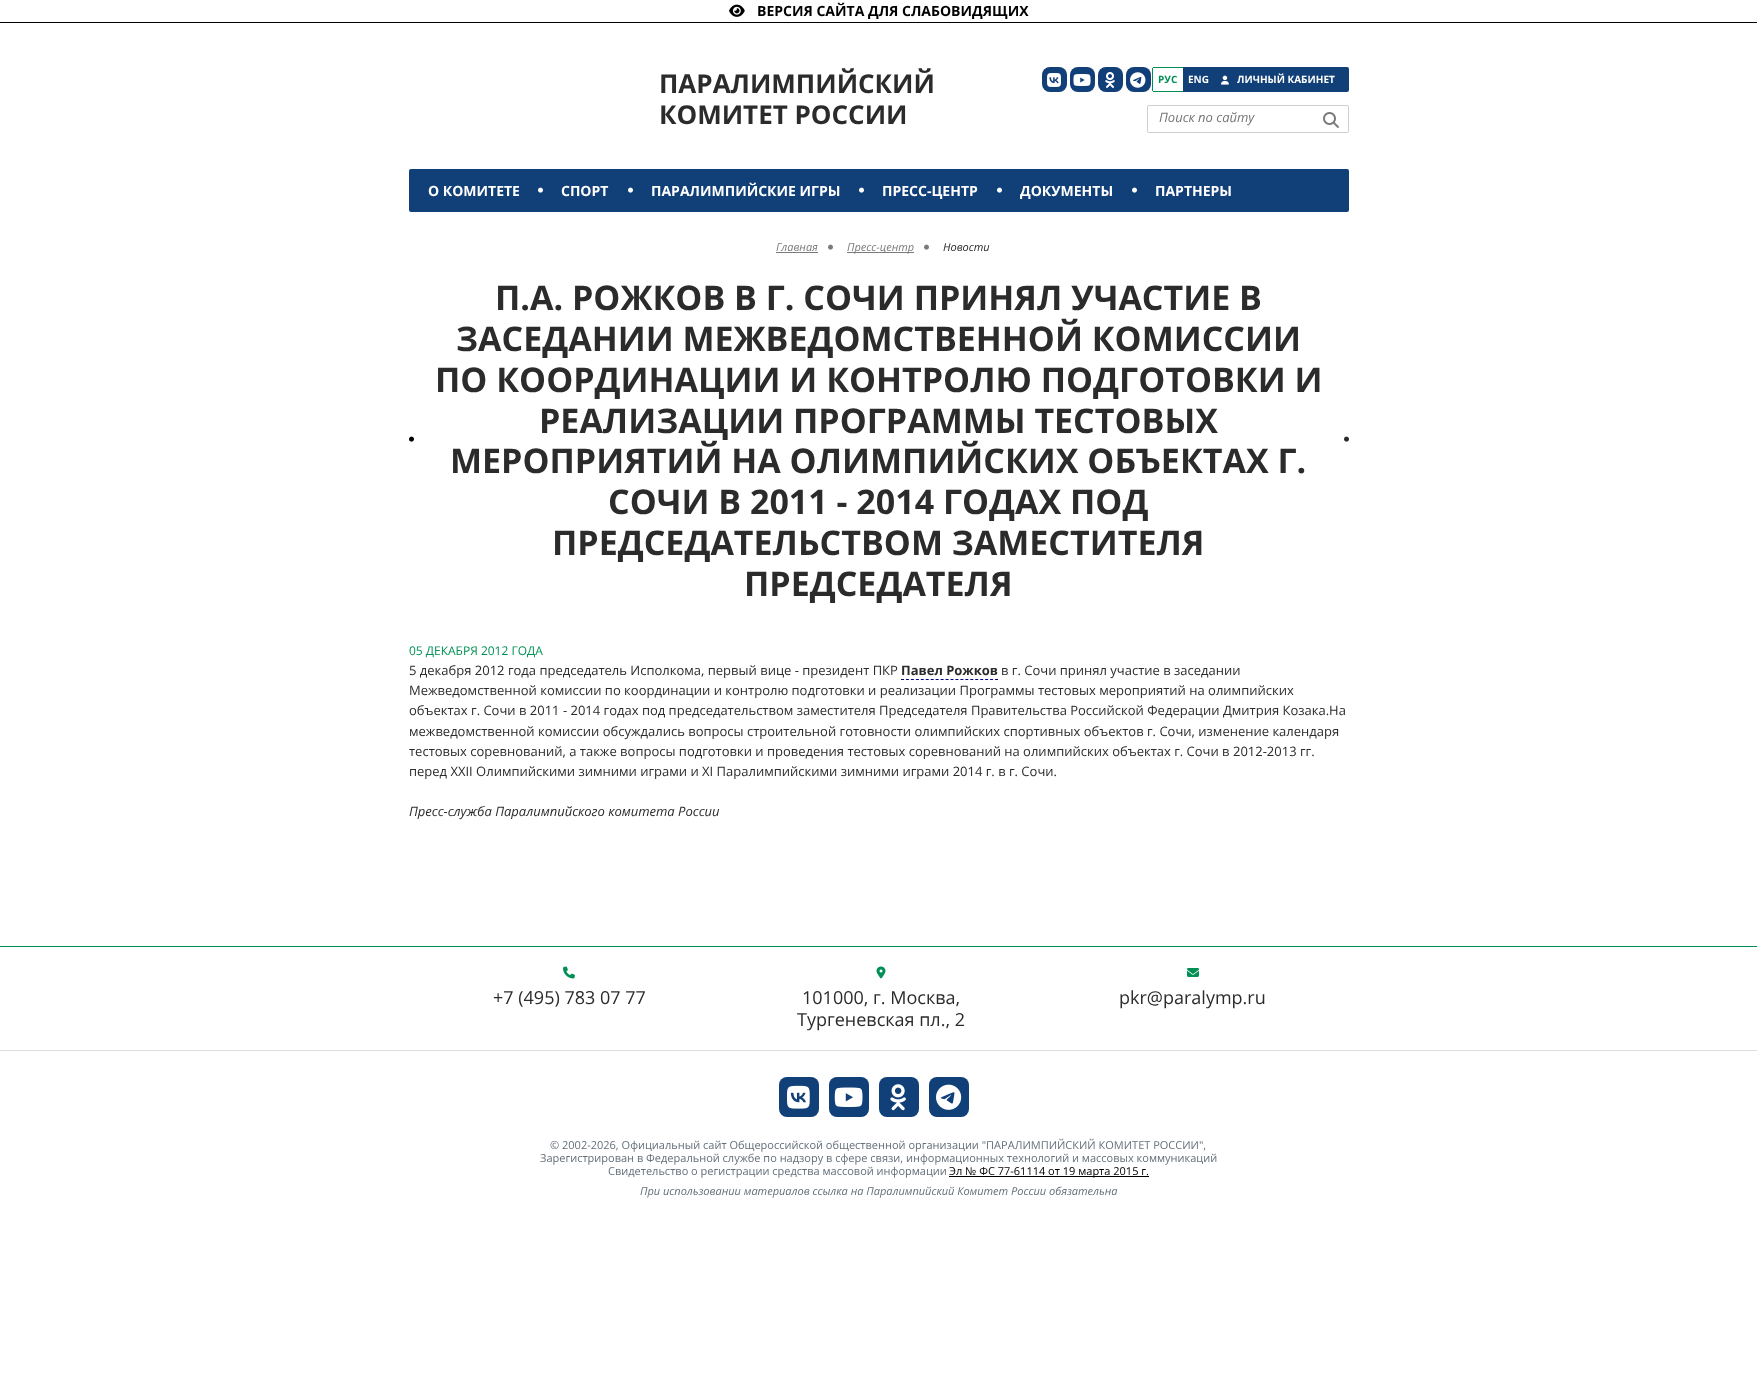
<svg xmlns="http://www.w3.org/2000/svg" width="1757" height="1395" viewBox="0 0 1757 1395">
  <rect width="100%" height="100%" fill="#ffffff"/>
  <rect x="0" y="22" width="1757" height="1" fill="#000000"/>
  <image x="729" y="4" width="16" height="13" href="img1.png"/>
  <text x="757" y="16" font-family="Open Sans" font-size="14" font-weight="bold" fill="#000000">ВЕРСИЯ САЙТА ДЛЯ СЛАБОВИДЯЩИХ</text>
  <text x="659" y="93" font-family="Open Sans" font-size="26" font-weight="bold" fill="#2b2b2b">ПАРАЛИМПИЙСКИЙ</text>
  <text x="659" y="124" font-family="Open Sans" font-size="26" font-weight="bold" fill="#2b2b2b">КОМИТЕТ РОССИИ</text>
  <rect x="1042" y="67" width="25" height="25" rx="8" fill="#113f77"/>
  <image x="1047" y="73" width="14" height="14" href="img2.png"/>
  <rect x="1070" y="67" width="25" height="25" rx="8" fill="#113f77"/>
  <image x="1073" y="74" width="18" height="12" href="img3.png"/>
  <rect x="1098" y="67" width="25" height="25" rx="8" fill="#113f77"/>
  <image x="1105" y="72" width="10" height="16" href="img4.png"/>
  <rect x="1126" y="67" width="25" height="25" rx="8" fill="#113f77"/>
  <image x="1130" y="72" width="16" height="16" href="img5.png"/>
  <rect x="1153" y="67" width="30" height="1" fill="#009055"/>
  <rect x="1153" y="91" width="30" height="1" fill="#009055"/>
  <rect x="1152" y="68" width="1" height="23" fill="#009055"/>
  <text x="1158" y="83" font-family="Open Sans" font-size="10" font-weight="bold" fill="#009055">РУС</text>
  <rect x="1183" y="68" width="30" height="23" fill="#113f77"/>
  <rect x="1183" y="67" width="31" height="1" fill="#113f77"/>
  <rect x="1183" y="91" width="31" height="1" fill="#113f77"/>
  <text x="1188" y="83" font-family="Open Sans" font-size="10" font-weight="bold" fill="#ffffff">ENG</text>
  <rect x="1212" y="67" width="137" height="25" rx="2" fill="#113f77"/>
  <image x="1221" y="75" width="8" height="10" href="img6.png"/>
  <text x="1237" y="83" font-family="Open Sans" font-size="10" font-weight="bold" fill="#ffffff">ЛИЧНЫЙ КАБИНЕТ</text>
  <rect x="1147.5" y="105.5" width="201" height="27" rx="1.5" fill="none" stroke="#cecece"/>
  <text x="1159" y="122" font-family="Open Sans" font-size="13" font-style="italic" fill="#757575">Поиск по сайту</text>
  <image x="1323" y="112" width="16" height="16" href="img7.png"/>
  <rect x="409" y="169" width="940" height="43" rx="2" fill="#113f77"/>
  <text x="428" y="196" font-family="Open Sans" font-size="14" font-weight="bold" fill="#ffffff">О КОМИТЕТЕ</text>
  <image x="538" y="187" width="5" height="6" href="img8.png"/>
  <text x="561" y="196" font-family="Open Sans" font-size="14" font-weight="bold" fill="#ffffff">СПОРТ</text>
  <image x="628" y="187" width="5" height="6" href="img8.png"/>
  <text x="651" y="196" font-family="Open Sans" font-size="14" font-weight="bold" fill="#ffffff">ПАРАЛИМПИЙСКИЕ ИГРЫ</text>
  <image x="859" y="187" width="5" height="6" href="img8.png"/>
  <text x="882" y="196" font-family="Open Sans" font-size="14" font-weight="bold" fill="#ffffff">ПРЕСС-ЦЕНТР</text>
  <image x="997" y="187" width="5" height="6" href="img8.png"/>
  <text x="1020" y="196" font-family="Open Sans" font-size="14" font-weight="bold" fill="#ffffff">ДОКУМЕНТЫ</text>
  <image x="1132" y="187" width="5" height="6" href="img8.png"/>
  <text x="1155" y="196" font-family="Open Sans" font-size="14" font-weight="bold" fill="#ffffff">ПАРТНЕРЫ</text>
  <text x="776" y="251" font-family="Open Sans" font-size="11" font-style="italic" fill="#7b7b7b">Главная</text>
  <rect x="776" y="252" width="42" height="1" fill="#7b7b7b"/>
  <image x="828" y="244" width="5" height="6" href="img9.png"/>
  <rect x="847" y="252" width="67" height="1" fill="#7b7b7b"/>
  <text x="847" y="251" font-family="Open Sans" font-size="11" font-style="italic" fill="#7b7b7b">Пресс-центр</text>
  <image x="924" y="244" width="5" height="6" href="img9.png"/>
  <text x="943" y="251" font-family="Open Sans" font-size="11" font-style="italic" fill="#2b2b2b">Новости</text>
  <image x="409" y="436" width="5" height="6" href="img10.png"/>
  <text x="495" y="310" font-family="Open Sans" font-size="34" font-weight="bold" fill="#2b2b2b">П.А. РОЖКОВ В Г. СОЧИ ПРИНЯЛ УЧАСТИЕ В</text>
  <text x="456" y="351" font-family="Open Sans" font-size="34" font-weight="bold" fill="#2b2b2b">ЗАСЕДАНИИ МЕЖВЕДОМСТВЕННОЙ КОМИССИИ</text>
  <text x="435" y="392" font-family="Open Sans" font-size="34" font-weight="bold" fill="#2b2b2b">ПО КООРДИНАЦИИ И КОНТРОЛЮ ПОДГОТОВКИ И</text>
  <text x="539" y="433" font-family="Open Sans" font-size="34" font-weight="bold" fill="#2b2b2b">РЕАЛИЗАЦИИ ПРОГРАММЫ ТЕСТОВЫХ</text>
  <image x="1344" y="436" width="5" height="6" href="img11.png"/>
  <text x="450" y="473" font-family="Open Sans" font-size="34" font-weight="bold" fill="#2b2b2b">МЕРОПРИЯТИЙ НА ОЛИМПИЙСКИХ ОБЪЕКТАХ Г.</text>
  <text x="608" y="514" font-family="Open Sans" font-size="34" font-weight="bold" fill="#2b2b2b">СОЧИ В 2011 - 2014 ГОДАХ ПОД</text>
  <text x="552" y="555" font-family="Open Sans" font-size="34" font-weight="bold" fill="#2b2b2b">ПРЕДСЕДАТЕЛЬСТВОМ ЗАМЕСТИТЕЛЯ</text>
  <text x="744" y="596" font-family="Open Sans" font-size="34" font-weight="bold" fill="#2b2b2b">ПРЕДСЕДАТЕЛЯ</text>
  <text x="409" y="655" font-family="Open Sans" font-size="12" fill="#009055">05 ДЕКАБРЯ 2012 ГОДА</text>
  <text x="409" y="675" font-family="Open Sans" font-size="13" fill="#2b2b2b">5 декабря 2012 года председатель Исполкома, первый вице - президент ПКР</text>
  <text x="901" y="675" font-family="Open Sans" font-size="13" font-weight="bold" fill="#2b2b2b">Павел Рожков</text>
  <path d="M901 679.5H998" fill="none" stroke="#000080" stroke-dasharray="3 1.95"/>
  <text x="1001" y="675" font-family="Open Sans" font-size="13" fill="#2b2b2b">в г. Сочи принял участие в заседании</text>
  <text x="409" y="695" font-family="Open Sans" font-size="13" fill="#2b2b2b">Межведомственной комиссии по координации и контролю подготовки и реализации Программы тестовых мероприятий на олимпийских</text>
  <text x="409" y="715" font-family="Open Sans" font-size="13" fill="#2b2b2b">объектах г. Сочи в 2011 - 2014 годах под председательством заместителя Председателя Правительства Российской Федерации Дмитрия Козака.На</text>
  <text x="409" y="736" font-family="Open Sans" font-size="13" fill="#2b2b2b">межведомственной комиссии обсуждались вопросы строительной готовности олимпийских спортивных объектов г. Сочи, изменение календаря</text>
  <text x="409" y="756" font-family="Open Sans" font-size="13" fill="#2b2b2b">тестовых соревнований, а также вопросы подготовки и проведения тестовых соревнований на олимпийских объектах г. Сочи в 2012-2013 гг.</text>
  <text x="409" y="776" font-family="Open Sans" font-size="13" fill="#2b2b2b">перед XXII Олимпийскими зимними играми и XI Паралимпийскими зимними играми 2014 г. в г. Сочи.</text>
  <text x="409" y="816" font-family="Open Sans" font-size="13" font-style="italic" fill="#2b2b2b">Пресс-служба Паралимпийского комитета России</text>
  <rect x="0" y="946" width="1757" height="1" fill="#009054"/>
  <image x="563" y="966" width="12" height="13" href="img12.png"/>
  <text x="493" y="1004" font-family="Open Sans" font-size="18" fill="#2b2b2b">+7 (495) 783 07 77</text>
  <image x="876" y="966" width="10" height="13" href="img13.png"/>
  <text x="802" y="1004" font-family="Open Sans" font-size="18" fill="#2b2b2b">101000, г. Москва,</text>
  <text x="797" y="1026" font-family="Open Sans" font-size="18" fill="#2b2b2b">Тургеневская пл., 2</text>
  <image x="1187" y="968" width="12" height="9" href="img14.png"/>
  <text x="1119" y="1004" font-family="Open Sans" font-size="18" fill="#2b2b2b">pkr@paralymp.ru</text>
  <rect x="0" y="1050" width="1757" height="1" fill="#dbdfe3"/>
  <rect x="779" y="1077" width="40" height="40" rx="8" fill="#113f77"/>
  <image x="787" y="1085" width="23" height="24" href="img15.png"/>
  <rect x="829" y="1077" width="40" height="40" rx="8" fill="#113f77"/>
  <image x="834" y="1087" width="29" height="20" href="img16.png"/>
  <rect x="879" y="1077" width="40" height="40" rx="8" fill="#113f77"/>
  <image x="890" y="1084" width="16" height="27" href="img17.png"/>
  <rect x="929" y="1077" width="40" height="40" rx="8" fill="#113f77"/>
  <image x="936" y="1084" width="26" height="26" href="img18.png"/>
  <text x="550" y="1149" font-family="Open Sans" font-size="11" fill="#646f7a">© 2002-2026, Официальный сайт Общероссийской общественной организации "ПАРАЛИМПИЙСКИЙ КОМИТЕТ РОССИИ",</text>
  <text x="540" y="1162" font-family="Open Sans" font-size="11" fill="#646f7a">Зарегистрирован в Федеральной службе по надзору в сфере связи, информационных технологий и массовых коммуникаций</text>
  <text x="608" y="1175" font-family="Open Sans" font-size="11" fill="#646f7a">Свидетельство о регистрации средства массовой информации</text>
  <rect x="949" y="1176" width="200" height="1" fill="#000000"/>
  <text x="949" y="1175" font-family="Open Sans" font-size="11" fill="#000000">Эл № ФС 77-61114 от 19 марта 2015 г.</text>
  <text x="640" y="1195" font-family="Open Sans" font-size="11" font-style="italic" fill="#646f7a">При использовании материалов ссылка на Паралимпийский Комитет России обязательна</text>
</svg>
